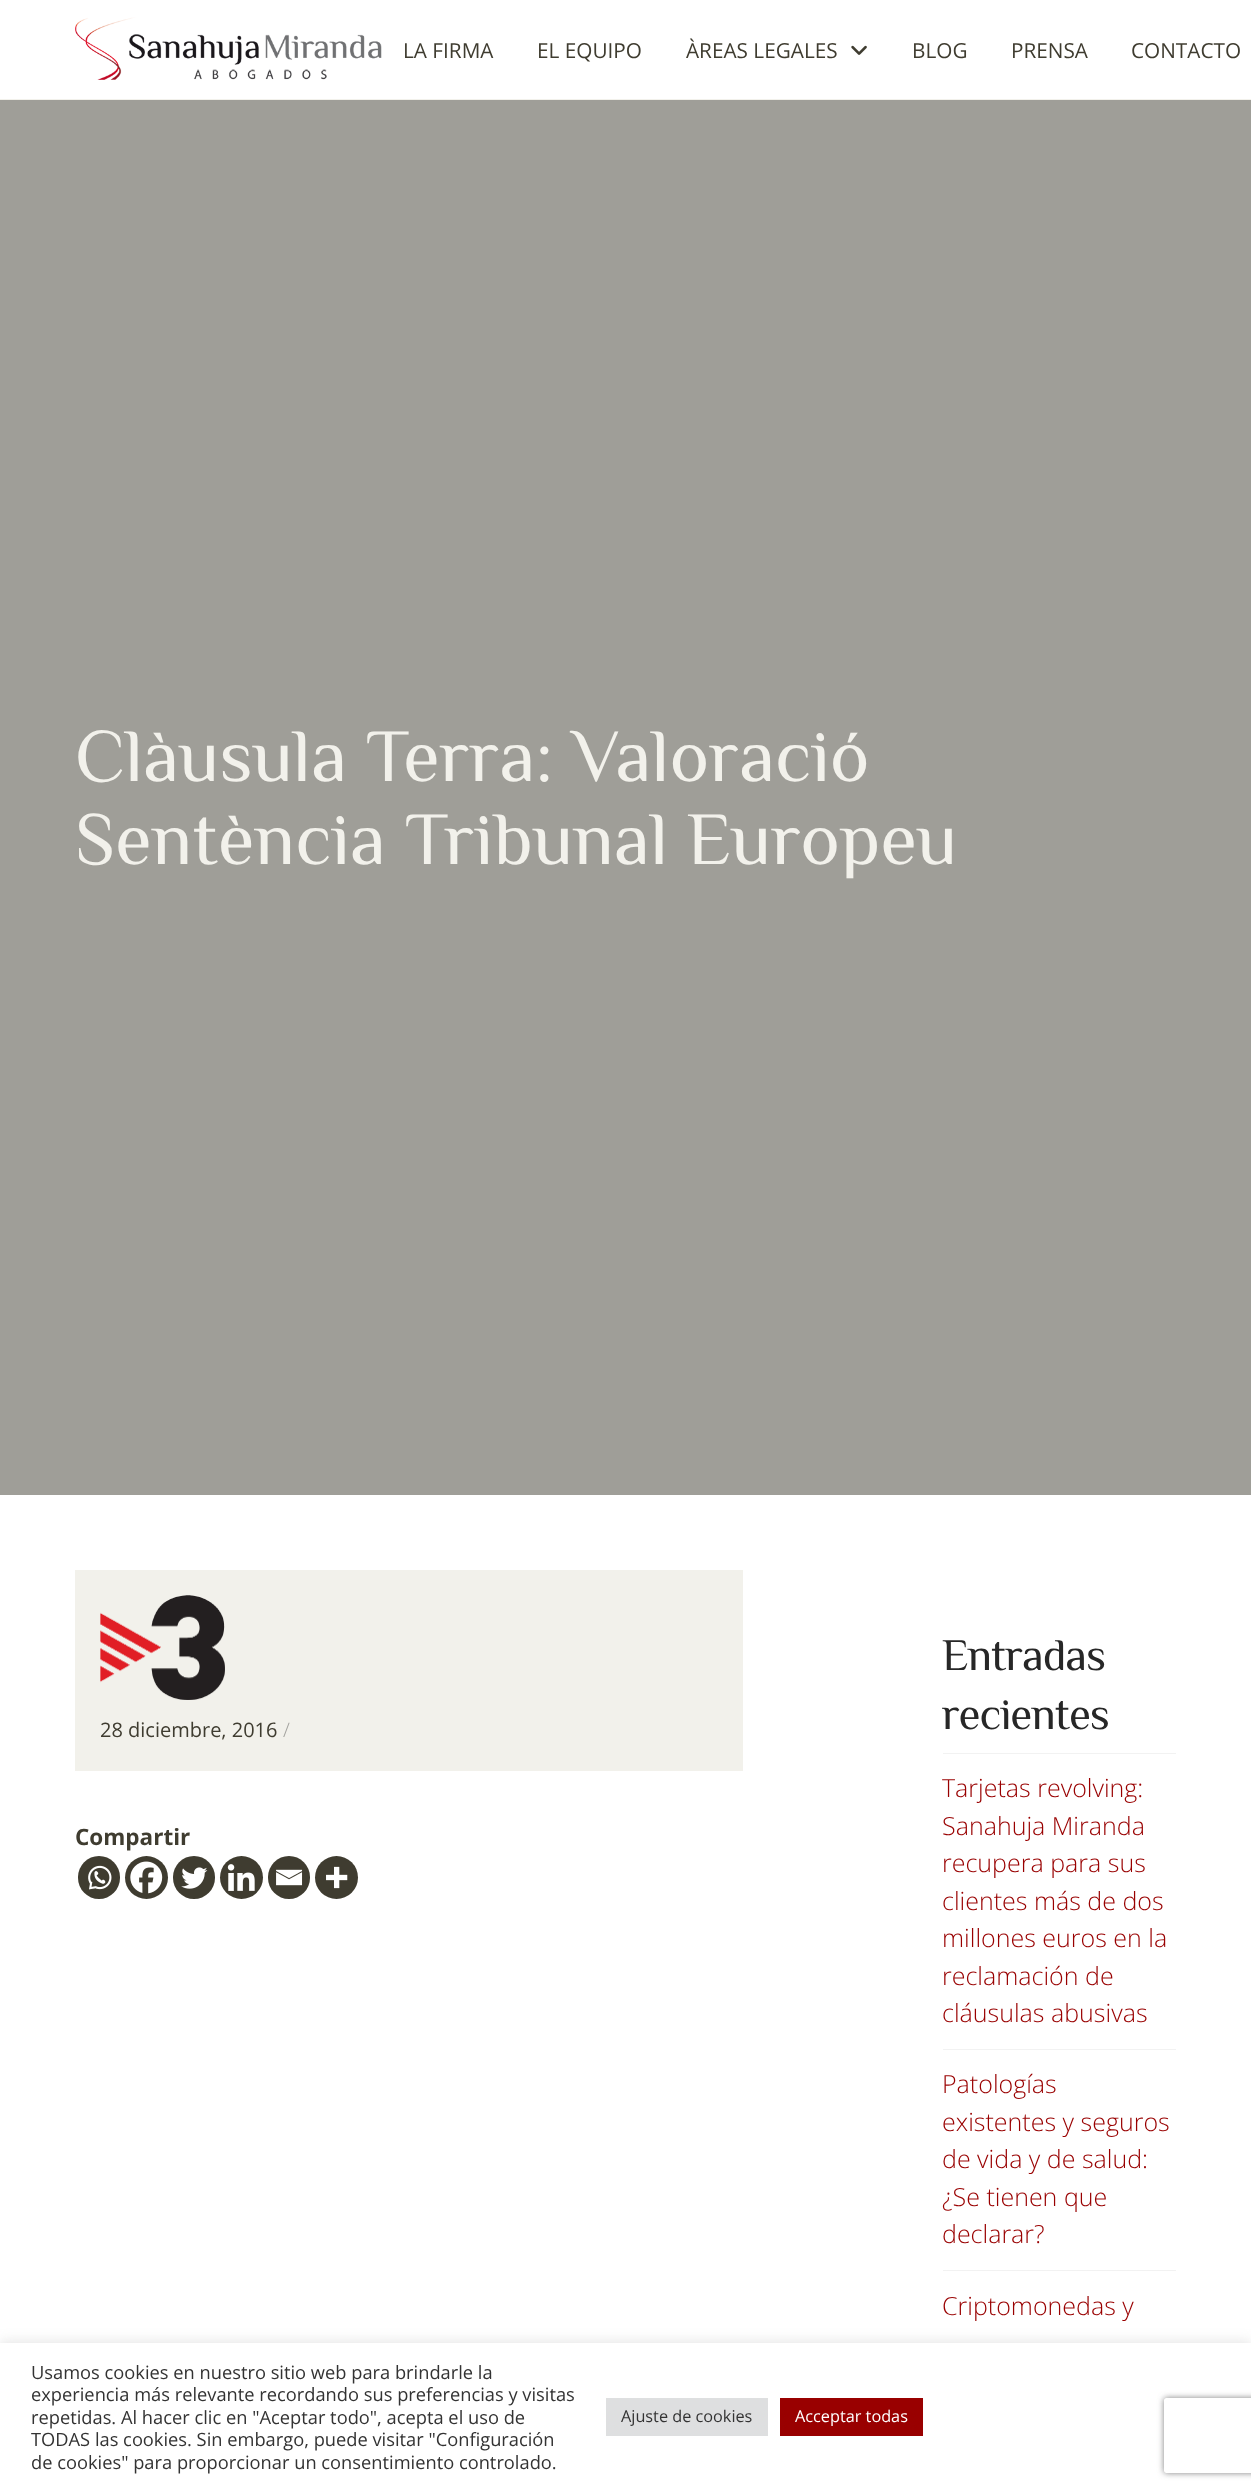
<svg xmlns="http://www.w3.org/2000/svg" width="1251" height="2489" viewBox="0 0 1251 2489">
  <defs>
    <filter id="blur1" x="-50%" y="-200%" width="200%" height="500%"><feGaussianBlur stdDeviation="6"/></filter>
    <clipPath id="clip1"><path d="M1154 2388H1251V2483H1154ZM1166.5 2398H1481.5C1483 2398 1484 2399 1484 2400.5V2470.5C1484 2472 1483 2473 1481.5 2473H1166.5C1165 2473 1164 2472 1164 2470.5V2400.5C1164 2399 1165 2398 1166.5 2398Z" clip-rule="evenodd"/></clipPath>
    <filter id="blur2" x="-50%" y="-200%" width="200%" height="500%"><feGaussianBlur stdDeviation="3"/></filter>
  </defs>
  <rect width="100%" height="100%" fill="#ffffff"/>
  <rect x="0" y="99" width="1251" height="1" fill="#f2f1eb"/>
  <image x="75" y="17" width="307" height="63" href="img1.png"/>
  <text x="403" y="58" font-family="Open Sans" font-size="20.75" fill="#3f3c30">LA FIRMA</text>
  <text x="537" y="58" font-family="Open Sans" font-size="20.75" fill="#3f3c30">EL EQUIPO</text>
  <text x="686" y="58" font-family="Open Sans" font-size="20.75" fill="#3f3c30">ÀREAS LEGALES</text>
  <image x="851" y="45" width="16" height="10" href="img2.png"/>
  <text x="912" y="58" font-family="Open Sans" font-size="20.75" fill="#3f3c30">BLOG</text>
  <text x="1011" y="58" font-family="Open Sans" font-size="20.75" fill="#3f3c30">PRENSA</text>
  <text x="1131" y="58" font-family="Open Sans" font-size="20.75" fill="#3f3c30">CONTACTO</text>
  <rect x="0" y="100" width="1251" height="1395" fill="#9f9e98"/>
  <text x="75" y="781" font-family="Philosopher" font-size="75" fill="#f2f1eb">Clàusula Terra: Valoració</text>
  <text x="75" y="864" font-family="Philosopher" font-size="75" fill="#f2f1eb">Sentència Tribunal Europeu</text>
  <rect x="75" y="1570" width="668" height="201" fill="#f2f1eb"/>
  <image x="100" y="1595" width="125" height="105" href="img3.png"/>
  <text x="100" y="1737" font-family="Open Sans" font-size="20" fill="#3f3c30">28 diciembre, 2016</text>
  <text x="283" y="1737" font-family="Open Sans" font-size="20" font-weight="300" fill="#a2a19d">/</text>
  <text x="75" y="1845" font-family="Open Sans" font-size="22.5" font-weight="bold" fill="#3f3c30">Compartir</text>
  <rect x="78" y="1856" width="42" height="43" rx="21" fill="#3f3c30"/>
  <image x="88" y="1865" width="24" height="25" href="img4.png"/>
  <circle cx="146.5" cy="1877.5" r="21.5" fill="#3f3c30"/>
  <image x="130" y="1861" width="33" height="33" href="img5.png"/>
  <rect x="173" y="1856" width="42" height="43" rx="21" fill="#3f3c30"/>
  <image x="181" y="1867" width="27" height="22" href="img6.png"/>
  <circle cx="241.5" cy="1877.5" r="21.5" fill="#3f3c30"/>
  <image x="227" y="1864" width="28" height="27" href="img7.png"/>
  <rect x="268" y="1856" width="42" height="43" rx="21" fill="#3f3c30"/>
  <image x="276" y="1869" width="27" height="17" href="img8.png"/>
  <circle cx="336.5" cy="1877.5" r="21.5" fill="#3f3c30"/>
  <image x="326" y="1866" width="22" height="23" href="img9.png"/>
  <text x="942" y="1670" font-family="Philosopher" font-size="45" letter-spacing="-1" fill="#272727">Entradas</text>
  <text x="942" y="1729" font-family="Philosopher" font-size="45" letter-spacing="-1" fill="#272727">recientes</text>
  <rect x="943" y="1753" width="233" height="1" fill="#f2f2f2"/>
  <rect x="943" y="2049" width="233" height="1" fill="#f2f2f2"/>
  <text x="942" y="1797" font-family="Open Sans" font-size="25" font-weight="300" fill="#990000">Tarjetas revolving:</text>
  <text x="942" y="1835" font-family="Open Sans" font-size="25" font-weight="300" fill="#990000">Sanahuja Miranda</text>
  <text x="942" y="1872" font-family="Open Sans" font-size="25" font-weight="300" fill="#990000">recupera para sus</text>
  <text x="942" y="1910" font-family="Open Sans" font-size="25" font-weight="300" fill="#990000">clientes más de dos</text>
  <text x="942" y="1947" font-family="Open Sans" font-size="25" font-weight="300" fill="#990000">millones euros en la</text>
  <text x="942" y="1985" font-family="Open Sans" font-size="25" font-weight="300" fill="#990000">reclamación de</text>
  <text x="942" y="2022" font-family="Open Sans" font-size="25" font-weight="300" fill="#990000">cláusulas abusivas</text>
  <rect x="943" y="2270" width="233" height="1" fill="#f2f2f2"/>
  <text x="942" y="2093" font-family="Open Sans" font-size="25" font-weight="300" fill="#990000">Patologías</text>
  <text x="942" y="2131" font-family="Open Sans" font-size="25" font-weight="300" fill="#990000">existentes y seguros</text>
  <text x="942" y="2168" font-family="Open Sans" font-size="25" font-weight="300" fill="#990000">de vida y de salud:</text>
  <text x="942" y="2206" font-family="Open Sans" font-size="25" font-weight="300" fill="#990000">¿Se tienen que</text>
  <text x="942" y="2243" font-family="Open Sans" font-size="25" font-weight="300" fill="#990000">declarar?</text>
  <text x="942" y="2315" font-family="Open Sans" font-size="25" font-weight="300" fill="#990000">Criptomonedas y</text>
  <rect x="0" y="2341" width="1251" height="148" fill="#acabab" fill-opacity="0.3" filter="url(#blur1)"/>
  <rect x="0" y="2343" width="1251" height="146" fill="#ffffff"/>
  <text x="31" y="2379" font-family="Open Sans" font-size="18.3" fill="#333333">Usamos cookies en nuestro sitio web para brindarle la</text>
  <text x="31" y="2401" font-family="Open Sans" font-size="18.3" fill="#333333">experiencia más relevante recordando sus preferencias y visitas</text>
  <text x="31" y="2424" font-family="Open Sans" font-size="18.3" fill="#333333">repetidas. Al hacer clic en "Aceptar todo", acepta el uso de</text>
  <text x="31" y="2446" font-family="Open Sans" font-size="18.3" fill="#333333">TODAS las cookies. Sin embargo, puede visitar "Configuración</text>
  <text x="31" y="2469" font-family="Open Sans" font-size="18.3" fill="#333333">de cookies" para proporcionar un consentimiento controlado.</text>
  <rect x="606" y="2398" width="162" height="38" fill="#dedfe0"/>
  <text x="621" y="2422" font-family="Open Sans" font-size="16.25" fill="#333333">Ajuste de cookies</text>
  <rect x="780" y="2398" width="143" height="38" fill="#990000"/>
  <text x="795" y="2422" font-family="Open Sans" font-size="16.25" fill="#ffffff">Acceptar todas</text>
  <g clip-path="url(#clip1)">
    <rect x="1164" y="2398" width="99" height="75" rx="2.5" fill="#808080" filter="url(#blur2)"/>
  </g>
</svg>
